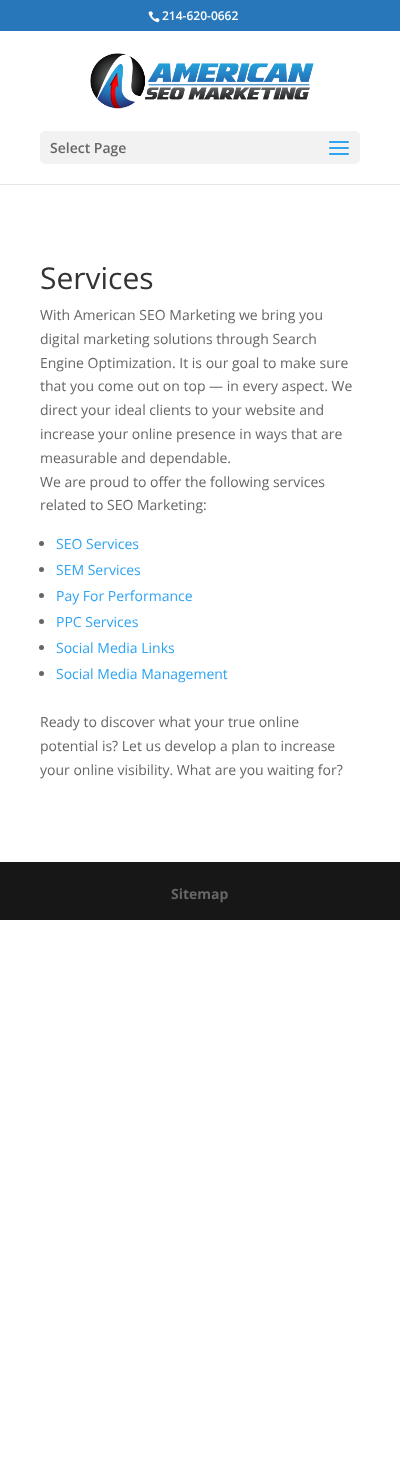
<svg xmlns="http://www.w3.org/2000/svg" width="400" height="1460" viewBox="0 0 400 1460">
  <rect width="100%" height="100%" fill="#ffffff"/>
  <rect x="0" y="0" width="400" height="31" fill="#2877bb"/>
  <image x="148" y="11" width="12" height="12" href="img1.png"/>
  <text x="162" y="20" font-family="Open Sans" font-size="12" font-weight="600" fill="#ffffff">214-620-0662</text>
  <rect x="0" y="184" width="400" height="1" fill="#e6e6e6"/>
  <image x="90" y="53" width="224" height="56" href="img2.png"/>
  <rect x="40" y="131" width="320" height="33" rx="5" fill="#f2f2f2"/>
  <text x="50" y="153" font-family="Open Sans" font-size="14" font-weight="600" fill="#666666">Select Page</text>
  <image x="329" y="141" width="20" height="14" href="img3.png"/>
  <text x="40" y="289" font-family="Open Sans" font-size="30" fill="#333333">Services</text>
  <text x="40" y="320" font-family="Open Sans" font-size="14" fill="#666666">With American SEO Marketing we bring you</text>
  <text x="40" y="344" font-family="Open Sans" font-size="14" fill="#666666">digital marketing solutions through Search</text>
  <text x="40" y="368" font-family="Open Sans" font-size="14" fill="#666666">Engine Optimization. It is our goal to make sure</text>
  <text x="40" y="391" font-family="Open Sans" font-size="14" fill="#666666">that you come out on top — in every aspect. We</text>
  <text x="40" y="415" font-family="Open Sans" font-size="14" fill="#666666">direct your ideal clients to your website and</text>
  <text x="40" y="439" font-family="Open Sans" font-size="14" fill="#666666">increase your online presence in ways that are</text>
  <text x="40" y="463" font-family="Open Sans" font-size="14" fill="#666666">measurable and dependable.</text>
  <text x="40" y="487" font-family="Open Sans" font-size="14" fill="#666666">We are proud to offer the following services</text>
  <text x="40" y="510" font-family="Open Sans" font-size="14" fill="#666666">related to SEO Marketing:</text>
  <circle cx="41.5" cy="543.5" r="2.5" fill="#666666"/>
  <text x="56" y="549" font-family="Open Sans" font-size="14" fill="#2ea3f2">SEO Services</text>
  <circle cx="41.5" cy="569.5" r="2.5" fill="#666666"/>
  <text x="56" y="575" font-family="Open Sans" font-size="14" fill="#2ea3f2">SEM Services</text>
  <circle cx="41.5" cy="595.5" r="2.5" fill="#666666"/>
  <text x="56" y="601" font-family="Open Sans" font-size="14" fill="#2ea3f2">Pay For Performance</text>
  <circle cx="41.5" cy="621.5" r="2.5" fill="#666666"/>
  <text x="56" y="627" font-family="Open Sans" font-size="14" fill="#2ea3f2">PPC Services</text>
  <circle cx="41.5" cy="647.5" r="2.5" fill="#666666"/>
  <text x="56" y="653" font-family="Open Sans" font-size="14" fill="#2ea3f2">Social Media Links</text>
  <circle cx="41.5" cy="673.5" r="2.5" fill="#666666"/>
  <text x="56" y="679" font-family="Open Sans" font-size="14" fill="#2ea3f2">Social Media Management</text>
  <text x="40" y="727" font-family="Open Sans" font-size="14" fill="#666666">Ready to discover what your true online</text>
  <text x="40" y="751" font-family="Open Sans" font-size="14" fill="#666666">potential is? Let us develop a plan to increase</text>
  <text x="40" y="775" font-family="Open Sans" font-size="14" fill="#666666">your online visibility. What are you waiting for?</text>
  <rect x="0" y="862" width="400" height="58" fill="#171717"/>
  <text x="171" y="899" font-family="Open Sans" font-size="14" font-weight="bold" fill="#666666">Sitemap</text>
</svg>
